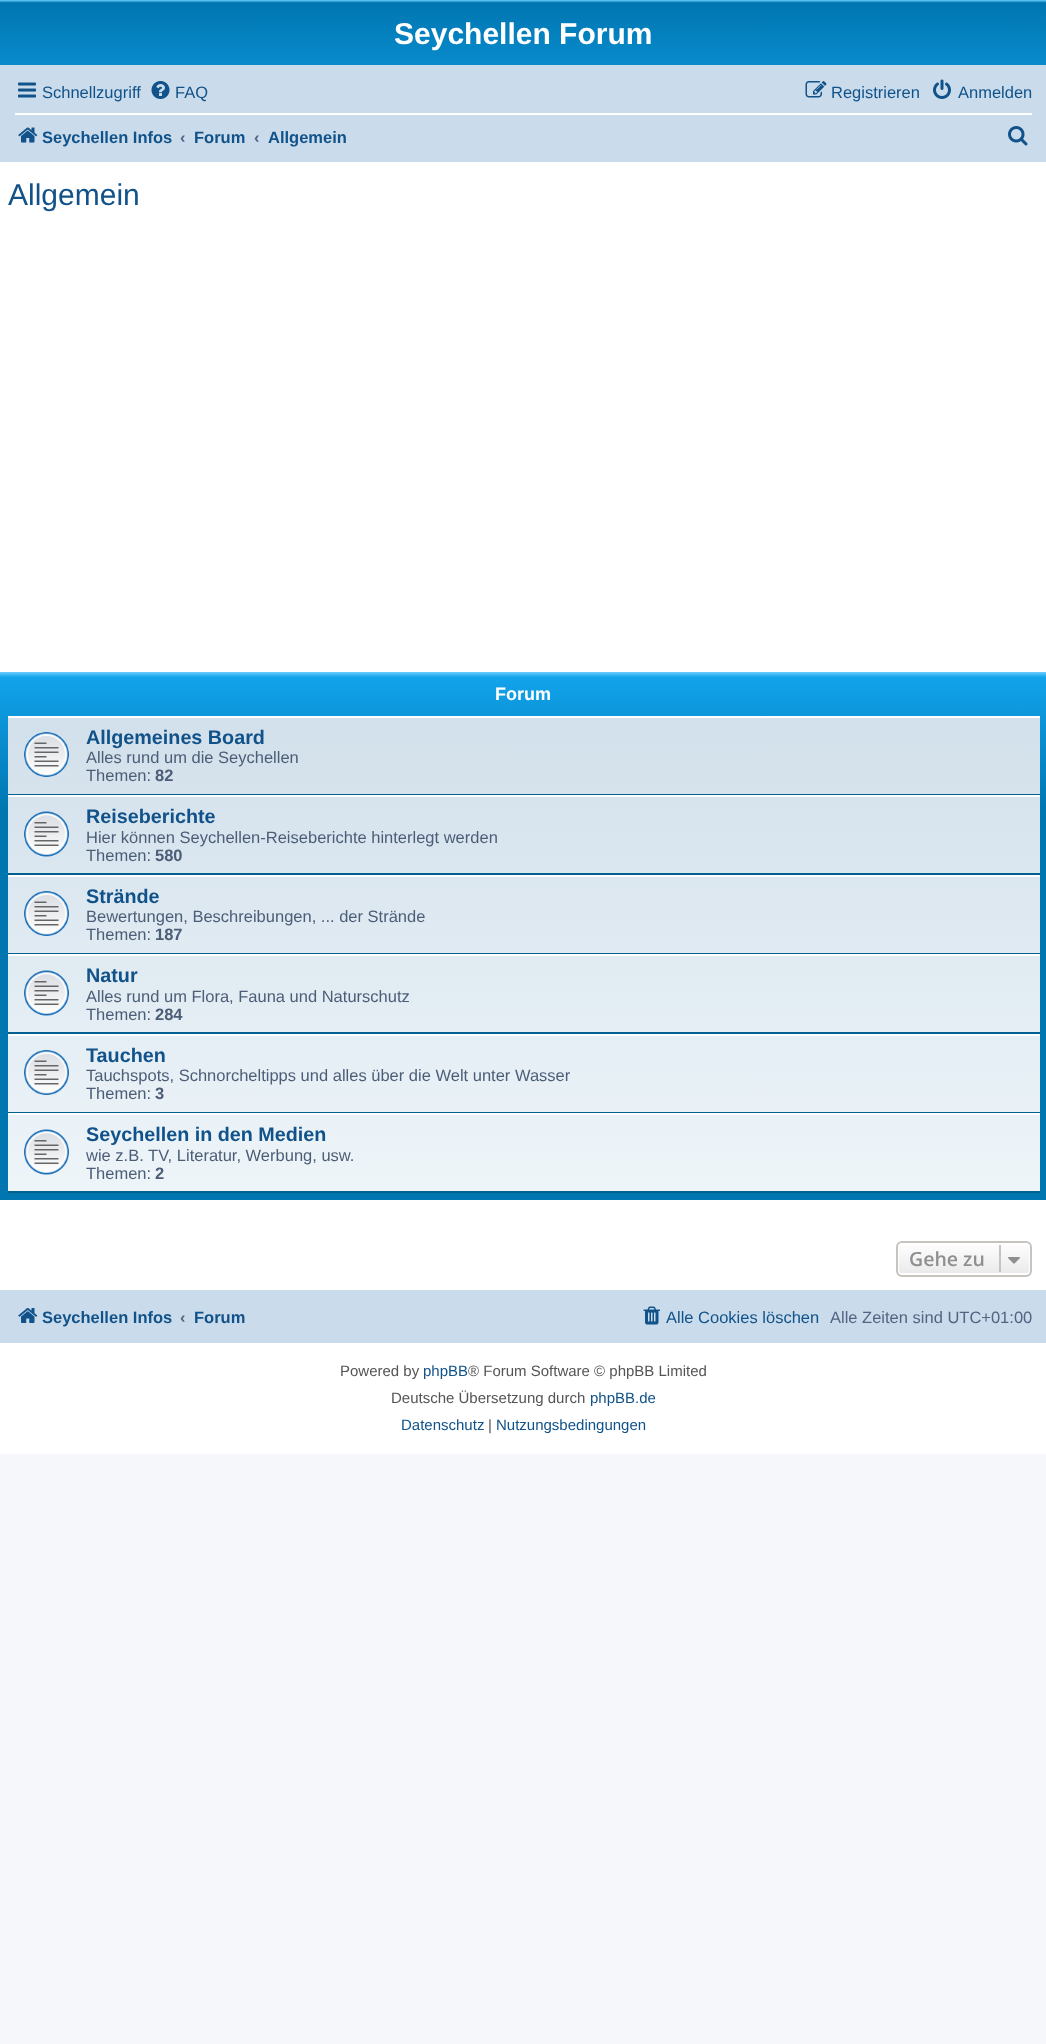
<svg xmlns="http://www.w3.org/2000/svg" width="1046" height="2044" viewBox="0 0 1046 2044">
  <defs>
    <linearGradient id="g1" gradientUnits="userSpaceOnUse" x1="524" y1="0" x2="524" y2="138"><stop offset="0" stop-color="#6aceff"/><stop offset="0.02" stop-color="#0076b1"/><stop offset="1" stop-color="#12a3eb"/></linearGradient>
    <linearGradient id="g2" gradientUnits="userSpaceOnUse" x1="524" y1="672" x2="524" y2="1200"><stop offset="0" stop-color="#6aceff"/><stop offset="0.01" stop-color="#12a3eb"/><stop offset="0.26" stop-color="#0076b1"/><stop offset="1" stop-color="#0076b1"/></linearGradient>
    <linearGradient id="g3" gradientUnits="userSpaceOnUse" x1="524" y1="716" x2="524" y2="1193"><stop offset="0" stop-color="#d2e0eb"/><stop offset="1" stop-color="#eef5f9"/></linearGradient>
    <clipPath id="clip1"><rect x="896" y="1241" width="136" height="36" rx="6"/></clipPath>
    <linearGradient id="g4" gradientUnits="userSpaceOnUse" x1="964" y1="1242" x2="964" y2="1275"><stop offset="0" stop-color="#ffffff"/><stop offset="1" stop-color="#e9e9e9"/></linearGradient>
  </defs>
  <rect width="100%" height="100%" fill="#f5f7fa"/>
  <rect x="0" y="162" width="1046" height="1292" fill="#ffffff"/>
  <rect x="0" y="0" width="1046" height="65" fill="url(#g1)"/>
  <text x="394" y="44" font-family="Liberation Sans" font-size="30" font-weight="bold" fill="#ffffff">Seychellen Forum</text>
  <rect x="0" y="65" width="1046" height="97" fill="#cadceb"/>
  <image x="18" y="82" width="18" height="16" href="img1.png"/>
  <text x="42" y="98" font-family="Liberation Sans" font-size="16.5" fill="#105289">Schnellzugriff</text>
  <image x="151" y="81" width="19" height="18" href="img2.png"/>
  <text x="175" y="98" font-family="Liberation Sans" font-size="16.5" fill="#105289">FAQ</text>
  <image x="805" y="81" width="22" height="17" href="img3.png"/>
  <text x="831" y="98" font-family="Liberation Sans" font-size="16.5" fill="#105289">Registrieren</text>
  <image x="933" y="79" width="18" height="20" href="img4.png"/>
  <text x="958" y="98" font-family="Liberation Sans" font-size="16.5" fill="#105289">Anmelden</text>
  <rect x="15" y="113" width="1017" height="2" fill="#ffffff"/>
  <image x="18" y="127" width="20" height="16" href="img5.png"/>
  <text x="42" y="143" font-family="Liberation Sans" font-size="16.5" font-weight="bold" fill="#105289">Seychellen Infos</text>
  <text x="180" y="143" font-family="Liberation Sans" font-size="16.5" font-weight="bold" fill="#536482">‹</text>
  <text x="194" y="143" font-family="Liberation Sans" font-size="16.5" font-weight="bold" fill="#105289">Forum</text>
  <text x="254" y="143" font-family="Liberation Sans" font-size="16.5" font-weight="bold" fill="#536482">‹</text>
  <text x="268" y="143" font-family="Liberation Sans" font-size="16.5" font-weight="bold" fill="#105289">Allgemein</text>
  <image x="1008" y="126" width="20" height="20" href="img6.png"/>
  <text x="8" y="205" font-family="Liberation Sans" font-size="30" fill="#105289">Allgemein</text>
  <rect x="0" y="672" width="1046" height="528" fill="url(#g2)"/>
  <text x="495" y="700" font-family="Liberation Sans" font-size="18" font-weight="bold" fill="#ffffff">Forum</text>
  <rect x="8" y="718" width="1032" height="473" fill="url(#g3)"/>
  <rect x="8" y="716" width="1032" height="2" fill="#ffffff"/>
  <rect x="8" y="794" width="1032" height="1" fill="#00608f"/>
  <image x="24" y="732" width="45" height="45" href="img7.png"/>
  <text x="86" y="744" font-family="Liberation Sans" font-size="19.75" font-weight="bold" fill="#105289">Allgemeines Board</text>
  <text x="86" y="763" font-family="Liberation Sans" font-size="16.5" fill="#4c5d77">Alles rund um die Seychellen</text>
  <text x="86" y="781" font-family="Liberation Sans" font-size="16.5" fill="#4c5d77">Themen:</text>
  <text x="155" y="781" font-family="Liberation Sans" font-size="16.5" font-weight="bold" fill="#4c5d77">82</text>
  <rect x="8" y="795" width="1032" height="2" fill="#ffffff"/>
  <rect x="8" y="873" width="1032" height="2" fill="#00608f"/>
  <image x="24" y="811" width="45" height="46" href="img8.png"/>
  <text x="86" y="823" font-family="Liberation Sans" font-size="19.75" font-weight="bold" fill="#105289">Reiseberichte</text>
  <text x="86" y="843" font-family="Liberation Sans" font-size="16.5" fill="#4c5d77">Hier können Seychellen-Reiseberichte hinterlegt werden</text>
  <text x="86" y="861" font-family="Liberation Sans" font-size="16.5" fill="#4c5d77">Themen:</text>
  <text x="155" y="861" font-family="Liberation Sans" font-size="16.5" font-weight="bold" fill="#4c5d77">580</text>
  <rect x="8" y="875" width="1032" height="2" fill="#ffffff"/>
  <rect x="8" y="953" width="1032" height="1" fill="#00608f"/>
  <image x="24" y="891" width="45" height="45" href="img9.png"/>
  <text x="86" y="903" font-family="Liberation Sans" font-size="19.75" font-weight="bold" fill="#105289">Strände</text>
  <text x="86" y="922" font-family="Liberation Sans" font-size="16.5" fill="#4c5d77">Bewertungen, Beschreibungen, ... der Strände</text>
  <text x="86" y="940" font-family="Liberation Sans" font-size="16.5" fill="#4c5d77">Themen:</text>
  <text x="155" y="940" font-family="Liberation Sans" font-size="16.5" font-weight="bold" fill="#4c5d77">187</text>
  <rect x="8" y="954" width="1032" height="2" fill="#ffffff"/>
  <rect x="8" y="1032" width="1032" height="2" fill="#00608f"/>
  <image x="24" y="970" width="45" height="46" href="img10.png"/>
  <text x="86" y="982" font-family="Liberation Sans" font-size="19.75" font-weight="bold" fill="#105289">Natur</text>
  <text x="86" y="1002" font-family="Liberation Sans" font-size="16.5" fill="#4c5d77">Alles rund um Flora, Fauna und Naturschutz</text>
  <text x="86" y="1020" font-family="Liberation Sans" font-size="16.5" fill="#4c5d77">Themen:</text>
  <text x="155" y="1020" font-family="Liberation Sans" font-size="16.5" font-weight="bold" fill="#4c5d77">284</text>
  <rect x="8" y="1034" width="1032" height="2" fill="#ffffff"/>
  <rect x="8" y="1112" width="1032" height="1" fill="#00608f"/>
  <image x="24" y="1050" width="45" height="45" href="img11.png"/>
  <text x="86" y="1062" font-family="Liberation Sans" font-size="19.75" font-weight="bold" fill="#105289">Tauchen</text>
  <text x="86" y="1081" font-family="Liberation Sans" font-size="16.5" fill="#4c5d77">Tauchspots, Schnorcheltipps und alles über die Welt unter Wasser</text>
  <text x="86" y="1099" font-family="Liberation Sans" font-size="16.5" fill="#4c5d77">Themen:</text>
  <text x="155" y="1099" font-family="Liberation Sans" font-size="16.5" font-weight="bold" fill="#4c5d77">3</text>
  <rect x="8" y="1113" width="1032" height="2" fill="#ffffff"/>
  <rect x="8" y="1191" width="1032" height="2" fill="#00608f"/>
  <image x="24" y="1129" width="45" height="46" href="img12.png"/>
  <text x="86" y="1141" font-family="Liberation Sans" font-size="19.75" font-weight="bold" fill="#105289">Seychellen in den Medien</text>
  <text x="86" y="1161" font-family="Liberation Sans" font-size="16.5" fill="#4c5d77">wie z.B. TV, Literatur, Werbung, usw.</text>
  <text x="86" y="1179" font-family="Liberation Sans" font-size="16.5" fill="#4c5d77">Themen:</text>
  <text x="155" y="1179" font-family="Liberation Sans" font-size="16.5" font-weight="bold" fill="#4c5d77">2</text>
  <g clip-path="url(#clip1)">
    <rect x="896" y="1242" width="136" height="33" fill="url(#g4)"/>
  </g>
  <rect x="898" y="1243" width="132" height="31" rx="4" fill="none" stroke="#ffffff" stroke-width="2"/>
  <rect x="897" y="1242" width="134" height="34" rx="5" fill="none" stroke="#c7c3bf" stroke-width="2"/>
  <text x="909" y="1266" font-family="Open Sans" font-size="19.5" font-weight="600" fill="#8f8f8f">Gehe zu</text>
  <rect x="999" y="1245" width="2" height="27" fill="#c7c3bf"/>
  <image x="1008" y="1257" width="12" height="7" href="img13.png"/>
  <rect x="0" y="1290" width="1046" height="53" fill="#cadceb"/>
  <image x="18" y="1308" width="20" height="15" href="img14.png"/>
  <text x="42" y="1323" font-family="Liberation Sans" font-size="16.5" font-weight="bold" fill="#105289">Seychellen Infos</text>
  <text x="180" y="1323" font-family="Liberation Sans" font-size="16.5" font-weight="bold" fill="#536482">‹</text>
  <text x="194" y="1323" font-family="Liberation Sans" font-size="16.5" font-weight="bold" fill="#105289">Forum</text>
  <image x="643" y="1306" width="17" height="19" href="img15.png"/>
  <text x="666" y="1323" font-family="Liberation Sans" font-size="16.5" fill="#105289">Alle Cookies löschen</text>
  <text x="830" y="1323" font-family="Liberation Sans" font-size="16.5" fill="#536482">Alle Zeiten sind UTC+01:00</text>
  <text x="340" y="1376" font-family="Liberation Sans" font-size="15" fill="#555555">Powered by</text>
  <text x="423" y="1376" font-family="Liberation Sans" font-size="15" fill="#105289">phpBB</text>
  <text x="468" y="1376" font-family="Liberation Sans" font-size="15" fill="#555555">® Forum Software © phpBB Limited</text>
  <text x="391" y="1403" font-family="Liberation Sans" font-size="15" fill="#555555">Deutsche Übersetzung durch</text>
  <text x="590" y="1403" font-family="Liberation Sans" font-size="15" fill="#105289">phpBB.de</text>
  <text x="401" y="1430" font-family="Liberation Sans" font-size="15" fill="#105289">Datenschutz</text>
  <text x="488" y="1430" font-family="Liberation Sans" font-size="15" fill="#555555">|</text>
  <text x="496" y="1430" font-family="Liberation Sans" font-size="15" fill="#105289">Nutzungsbedingungen</text>
</svg>
